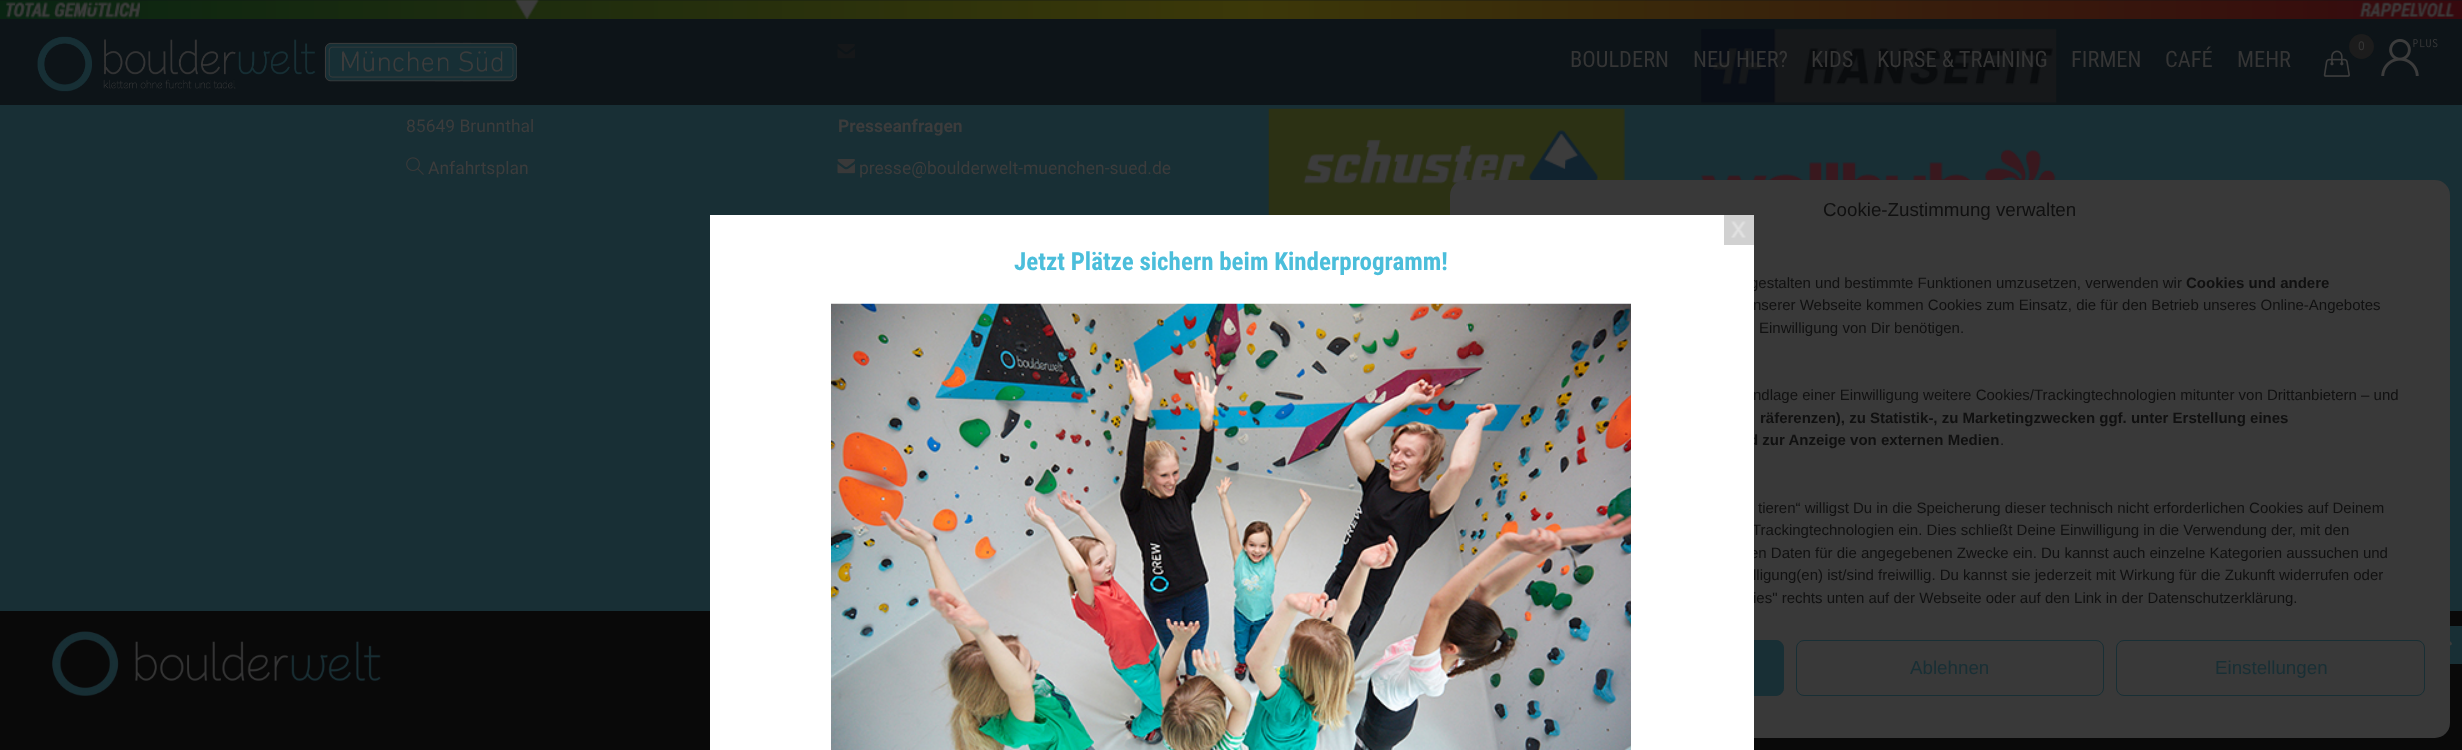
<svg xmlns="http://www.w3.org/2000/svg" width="2462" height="750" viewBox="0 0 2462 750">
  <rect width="100%" height="100%" fill="#182f35"/>
  <image x="837" y="44" width="18" height="15" href="img9.png"/>
  <image x="1701" y="28" width="356" height="152" href="img11.png"/>
  <rect x="0" y="0" width="2462" height="105" fill="#090c0f" fill-opacity="0.75"/>
  <image x="0" y="0" width="2462" height="19" href="img1.png"/>
  <image x="6" y="2" width="134" height="17" href="img2.png"/>
  <image x="514" y="0" width="26" height="19" href="img3.png"/>
  <image x="2359" y="2" width="96" height="16" href="img4.png"/>
  <image x="37" y="36" width="480" height="56" href="img5.png"/>
  <text x="1570" y="67" font-family="Roboto Condensed" font-size="22.5" fill="#353535">BOULDERN</text>
  <text x="1693" y="67" font-family="Roboto Condensed" font-size="22.5" fill="#353535">NEU HIER?</text>
  <text x="1811" y="67" font-family="Roboto Condensed" font-size="22.5" fill="#353535">KIDS</text>
  <text x="1877" y="67" font-family="Roboto Condensed" font-size="22.5" fill="#353535">KURSE &amp; TRAINING</text>
  <text x="2071" y="67" font-family="Roboto Condensed" font-size="22.5" fill="#353535">FIRMEN</text>
  <text x="2165" y="67" font-family="Roboto Condensed" font-size="22.5" fill="#353535">CAFÉ</text>
  <text x="2237" y="67" font-family="Roboto Condensed" font-size="22.5" fill="#353535">MEHR</text>
  <image x="2323" y="50" width="27" height="27" href="img6.png"/>
  <circle cx="2361.5" cy="46.5" r="12.5" fill="#1c1c1c"/>
  <text x="2358" y="50" font-family="Roboto" font-size="12" fill="#353535">0</text>
  <image x="2381" y="39" width="57" height="37" href="img7.png"/>
  <text x="406" y="132" font-family="Roboto" font-size="17.5" fill="#3c3c3c">85649 Brunnthal</text>
  <image x="406" y="157" width="18" height="18" href="img8.png"/>
  <text x="428" y="174" font-family="Roboto" font-size="17.5" fill="#3c3c3c">Anfahrtsplan</text>
  <text x="838" y="132" font-family="Roboto" font-size="17.5" font-weight="bold" fill="#3c3c3c">Presseanfragen</text>
  <image x="837" y="159" width="18" height="15" href="img9.png"/>
  <text x="859" y="174" font-family="Roboto" font-size="17.5" fill="#3c3c3c">presse@boulderwelt-muenchen-sued.de</text>
  <image x="1268" y="108" width="357" height="107" href="img10.png"/>
  <rect x="0" y="611" width="2462" height="139" fill="#090909"/>
  <image x="50" y="629" width="332" height="68" href="img12.png"/>
  <rect x="1450" y="180" width="1000" height="558" rx="15" fill="#393939"/>
  <text x="1750" y="288" font-family="Liberation Sans" font-size="15" fill="#101010">gestalten und bestimmte Funktionen umzusetzen, verwenden wir</text>
  <text x="1753" y="310" font-family="Liberation Sans" font-size="15" fill="#101010">nserer Webseite kommen Cookies zum Einsatz, die für den Betrieb unseres Online-Angebotes</text>
  <text x="1753" y="400" font-family="Liberation Sans" font-size="15" fill="#101010">ndlage einer Einwilligung weitere Cookies/Trackingtechnologien mitunter von Drittanbietern – und</text>
  <text x="1749" y="445" font-family="Liberation Sans" font-size="15" font-weight="bold" fill="#101010">d zur Anzeige von externen Medien</text>
  <text x="1752" y="535" font-family="Liberation Sans" font-size="15" fill="#101010">Trackingtechnologien ein. Dies schließt Deine Einwilligung in die Verwendung der, mit den</text>
  <text x="1750" y="558" font-family="Liberation Sans" font-size="15" fill="#101010">en Daten für die angegebenen Zwecke ein. Du kannst auch einzelne Kategorien aussuchen und</text>
  <text x="1753" y="580" font-family="Liberation Sans" font-size="15" fill="#101010">lligung(en) ist/sind freiwillig. Du kannst sie jederzeit mit Wirkung für die Zukunft widerrufen oder</text>
  <rect x="1475.5" y="640.5" width="308" height="55" rx="7.5" fill="#182f35" stroke="#182f35"/>
  <rect x="710" y="215" width="1044" height="535" fill="#ffffff"/>
  <rect x="1724" y="215" width="30" height="30" fill="#d1d1d1"/>
  <image x="1731" y="221" width="15" height="17" href="img13.png"/>
  <text x="1014" y="270" font-family="Roboto Condensed" font-size="25" font-weight="bold" fill="#4bbedb">Jetzt Plätze sichern beim Kinderprogramm!</text>
  <image x="831" y="303" width="800" height="447" href="img14.png"/>
  <text x="1823" y="216" font-family="Liberation Sans" font-size="18.75" fill="#101010">Cookie-Zustimmung verwalten</text>
  <text x="2186" y="288" font-family="Liberation Sans" font-size="15" font-weight="bold" fill="#101010">Cookies und andere</text>
  <text x="1759" y="333" font-family="Liberation Sans" font-size="15" fill="#101010">Einwilligung von Dir benötigen.</text>
  <text x="1760" y="423" font-family="Liberation Sans" font-size="15" font-weight="bold" fill="#101010">räferenzen), zu Statistik-, zu Marketingzwecken ggf. unter Erstellung eines</text>
  <text x="2000" y="445" font-family="Liberation Sans" font-size="15" fill="#101010">.</text>
  <text x="1758" y="513" font-family="Liberation Sans" font-size="15" fill="#101010">tieren“ willigst Du in die Speicherung dieser technisch nicht erforderlichen Cookies auf Deinem</text>
  <text x="1753" y="603" font-family="Liberation Sans" font-size="15" fill="#101010">ies" rechts unten auf der Webseite oder auf den Link in der Datenschutzerklärung.</text>
  <rect x="1796.5" y="640.5" width="307" height="55" rx="7.5" fill="none" stroke="#182f35"/>
  <text x="1910" y="674" font-family="Liberation Sans" font-size="18.75" fill="#182f35">Ablehnen</text>
  <rect x="2116.5" y="640.5" width="308" height="55" rx="7.5" fill="none" stroke="#182f35"/>
  <text x="2215" y="674" font-family="Liberation Sans" font-size="18.75" fill="#182f35">Einstellungen</text>
  <rect x="2450" y="626" width="12" height="38" fill="#182f35"/>
  <image x="2450" y="641" width="2" height="5" href="img15.png"/>
</svg>
